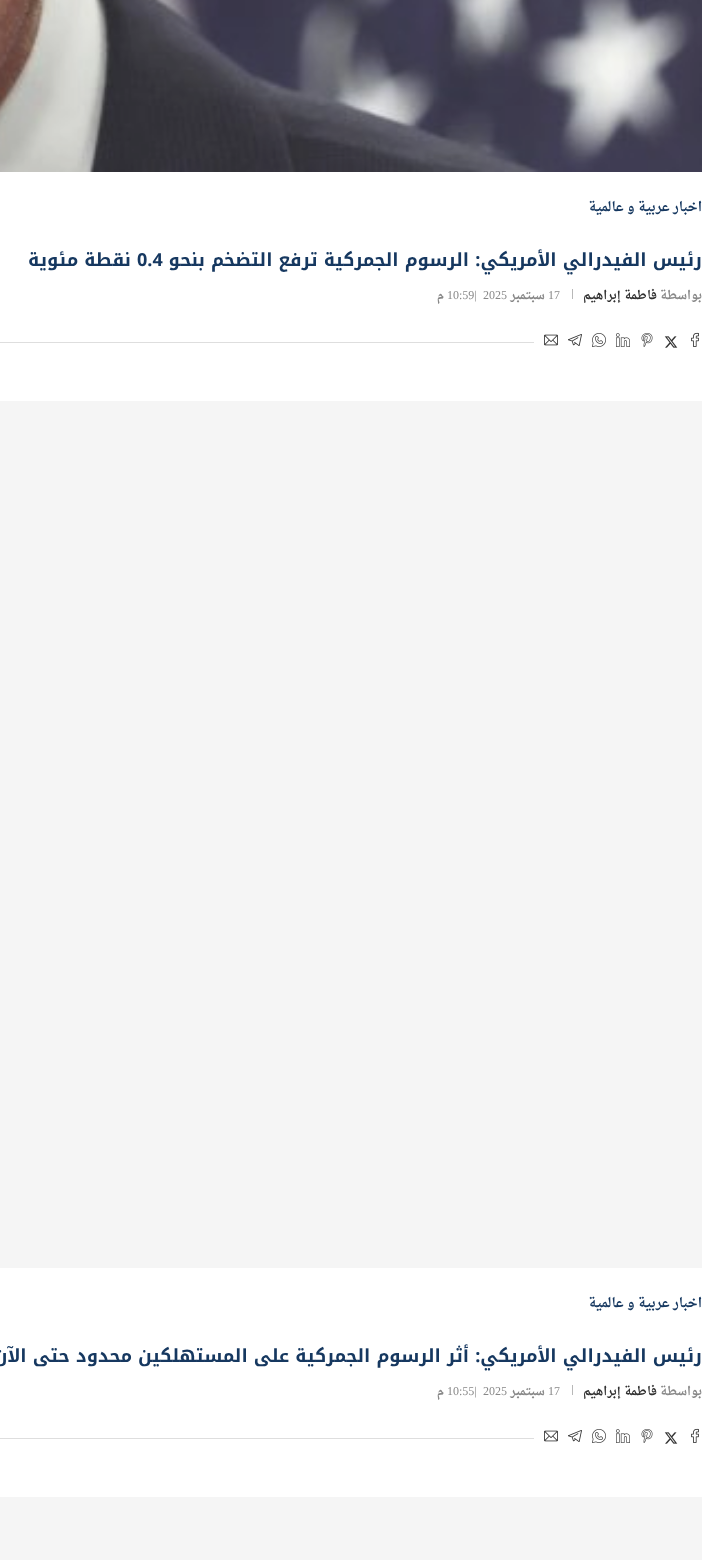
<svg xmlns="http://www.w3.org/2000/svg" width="702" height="1560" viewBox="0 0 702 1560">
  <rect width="100%" height="100%" fill="#ffffff"/>
  <image x="0" y="0" width="702" height="172" href="img1.png"/>
  <text x="702" y="211" font-family="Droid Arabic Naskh" font-size="13" font-weight="bold" direction="rtl" fill="#163860">اخبار عربية و عالمية</text>
  <text x="702" y="266" font-family="Noto Kufi Arabic" font-size="18" font-weight="bold" direction="rtl" fill="#163860">رئيس الفيدرالي الأمريكي: الرسوم الجمركية ترفع التضخم بنحو</text>
  <text x="137" y="266" font-family="Noto Kufi Arabic" font-size="18" font-weight="bold" fill="#163860">0.4</text>
  <text x="131" y="266" font-family="Noto Kufi Arabic" font-size="18" font-weight="bold" direction="rtl" fill="#163860">نقطة مئوية</text>
  <text x="702" y="299" font-family="Droid Arabic Naskh" font-size="12" font-weight="bold" direction="rtl" fill="#888888">بواسطة</text>
  <text x="657" y="299" font-family="Droid Arabic Naskh" font-size="12" font-weight="bold" direction="rtl" fill="#313131">فاطمة إبراهيم</text>
  <rect x="572" y="289" width="1" height="10" fill="#b8b8b8"/>
  <text x="548" y="299" font-family="Liberation Serif" font-size="12" fill="#888888">17</text>
  <text x="545" y="299" font-family="Droid Arabic Naskh" font-size="12" font-weight="bold" direction="rtl" fill="#888888">سبتمبر</text>
  <text x="483" y="299" font-family="Liberation Serif" font-size="12" fill="#888888">2025</text>
  <text x="447" y="299" font-family="Liberation Serif" font-size="12" fill="#888888">10:59|</text>
  <text x="444" y="299" font-family="Droid Arabic Naskh" font-size="12" font-weight="bold" direction="rtl" fill="#888888">م</text>
  <image x="691" y="332" width="8" height="15" href="img2.png"/>
  <image x="664" y="336" width="14" height="12" href="img3.png"/>
  <image x="641" y="333" width="12" height="14" href="img4.png"/>
  <image x="616" y="333" width="14" height="14" href="img5.png"/>
  <image x="592" y="333" width="14" height="14" href="img6.png"/>
  <image x="568" y="334" width="14" height="12" href="img7.png"/>
  <image x="544" y="334" width="14" height="12" href="img8.png"/>
  <rect x="0" y="342" width="534" height="1" fill="#dedede"/>
  <rect x="0" y="401" width="702" height="867" fill="#f5f5f5"/>
  <text x="702" y="1307" font-family="Droid Arabic Naskh" font-size="13" font-weight="bold" direction="rtl" fill="#163860">اخبار عربية و عالمية</text>
  <text x="702" y="1362" font-family="Noto Kufi Arabic" font-size="18" font-weight="bold" direction="rtl" fill="#163860">رئيس الفيدرالي الأمريكي: أثر الرسوم الجمركية على المستهلكين محدود حتى الآن</text>
  <text x="702" y="1395" font-family="Droid Arabic Naskh" font-size="12" font-weight="bold" direction="rtl" fill="#888888">بواسطة</text>
  <text x="657" y="1395" font-family="Droid Arabic Naskh" font-size="12" font-weight="bold" direction="rtl" fill="#313131">فاطمة إبراهيم</text>
  <rect x="572" y="1385" width="1" height="10" fill="#b8b8b8"/>
  <text x="548" y="1395" font-family="Liberation Serif" font-size="12" fill="#888888">17</text>
  <text x="545" y="1395" font-family="Droid Arabic Naskh" font-size="12" font-weight="bold" direction="rtl" fill="#888888">سبتمبر</text>
  <text x="483" y="1395" font-family="Liberation Serif" font-size="12" fill="#888888">2025</text>
  <text x="447" y="1395" font-family="Liberation Serif" font-size="12" fill="#888888">10:55|</text>
  <text x="444" y="1395" font-family="Droid Arabic Naskh" font-size="12" font-weight="bold" direction="rtl" fill="#888888">م</text>
  <image x="691" y="1428" width="8" height="15" href="img2.png"/>
  <image x="664" y="1432" width="14" height="12" href="img3.png"/>
  <image x="641" y="1429" width="12" height="14" href="img4.png"/>
  <image x="616" y="1429" width="14" height="14" href="img5.png"/>
  <image x="592" y="1429" width="14" height="14" href="img6.png"/>
  <image x="568" y="1430" width="14" height="12" href="img7.png"/>
  <image x="544" y="1430" width="14" height="12" href="img8.png"/>
  <rect x="0" y="1438" width="534" height="1" fill="#dedede"/>
  <rect x="0" y="1497" width="702" height="63" fill="#f5f5f5"/>
</svg>
